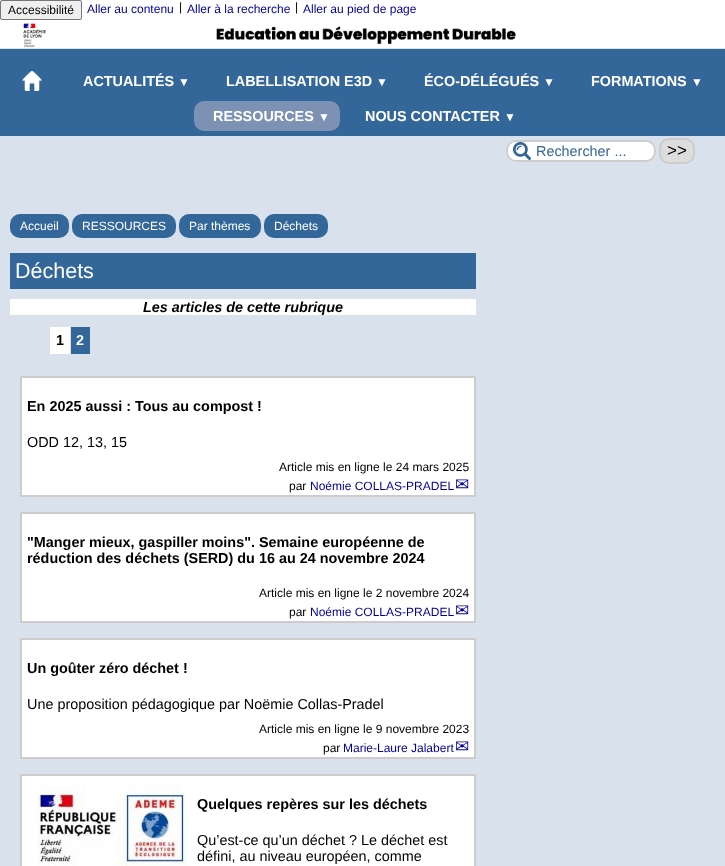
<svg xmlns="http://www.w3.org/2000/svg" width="725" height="866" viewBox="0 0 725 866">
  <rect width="100%" height="100%" fill="#d9e2ec"/>
  <rect x="0" y="48" width="725" height="88" fill="#336699"/>
  <rect x="0" y="0" width="725" height="20" fill="#ffffff"/>
  <rect x="0.5" y="0.5" width="81" height="19" rx="1.5" fill="#efefef" stroke="#767676"/>
  <text x="8" y="14" font-family="Liberation Sans" font-size="12" fill="#000000">Accessibilité</text>
  <text x="87" y="13" font-family="Liberation Sans" font-size="12" fill="#000099">Aller au contenu</text>
  <text x="179" y="11" font-family="Liberation Sans" font-size="12" fill="#000000">|</text>
  <text x="187" y="13" font-family="Liberation Sans" font-size="12" fill="#000099">Aller à la recherche</text>
  <text x="295" y="11" font-family="Liberation Sans" font-size="12" fill="#000000">|</text>
  <text x="303" y="13" font-family="Liberation Sans" font-size="12" fill="#000099">Aller au pied de page</text>
  <image x="0" y="20" width="725" height="29" href="img1.png"/>
  <image x="22" y="71" width="20" height="20" href="img2.png"/>
  <text x="83" y="86" font-family="Liberation Sans" font-size="14.4" font-weight="bold" fill="#ffffff">ACTUALITÉS</text>
  <text x="178" y="86" font-family="Liberation Sans" font-size="12" font-weight="bold" fill="#ffffff">▼</text>
  <text x="226" y="86" font-family="Liberation Sans" font-size="14.4" font-weight="bold" fill="#ffffff">LABELLISATION E3D</text>
  <text x="376" y="86" font-family="Liberation Sans" font-size="12" font-weight="bold" fill="#ffffff">▼</text>
  <text x="424" y="86" font-family="Liberation Sans" font-size="14.4" font-weight="bold" fill="#ffffff">ÉCO-DÉLÉGUÉS</text>
  <text x="543" y="86" font-family="Liberation Sans" font-size="12" font-weight="bold" fill="#ffffff">▼</text>
  <text x="591" y="86" font-family="Liberation Sans" font-size="14.4" font-weight="bold" fill="#ffffff">FORMATIONS</text>
  <text x="691" y="86" font-family="Liberation Sans" font-size="12" font-weight="bold" fill="#ffffff">▼</text>
  <rect x="194" y="101" width="146" height="30" rx="10" fill="#7c91b4"/>
  <text x="213" y="121" font-family="Liberation Sans" font-size="14.4" font-weight="bold" fill="#ffffff">RESSOURCES</text>
  <text x="318" y="121" font-family="Liberation Sans" font-size="12" font-weight="bold" fill="#ffffff">▼</text>
  <text x="365" y="121" font-family="Liberation Sans" font-size="14.4" font-weight="bold" fill="#ffffff">NOUS CONTACTER</text>
  <text x="504" y="121" font-family="Liberation Sans" font-size="12" font-weight="bold" fill="#ffffff">▼</text>
  <rect x="506" y="140" width="150" height="22" rx="10" fill="#ffffff"/>
  <image x="513" y="142" width="18" height="18" href="img3.png"/>
  <rect x="507" y="141" width="148" height="20" rx="9" fill="none" stroke="#cccccc" stroke-width="2"/>
  <text x="536" y="156" font-family="Liberation Sans" font-size="14.4" fill="#336699">Rechercher ...</text>
  <rect x="660" y="139" width="34" height="24" rx="9" fill="#dddddd" stroke="#cccccc" stroke-width="2"/>
  <text x="667" y="156" font-family="Liberation Sans" font-size="17" fill="#000000">&gt;&gt;</text>
  <rect x="10" y="214" width="59" height="24" rx="10" fill="#336699"/>
  <text x="20" y="230" font-family="Liberation Sans" font-size="12" fill="#ffffff">Accueil</text>
  <rect x="72" y="214" width="104" height="24" rx="10" fill="#336699"/>
  <text x="82" y="230" font-family="Liberation Sans" font-size="12" fill="#ffffff">RESSOURCES</text>
  <rect x="179" y="214" width="82" height="24" rx="10" fill="#336699"/>
  <text x="189" y="230" font-family="Liberation Sans" font-size="12" fill="#ffffff">Par thèmes</text>
  <rect x="264" y="214" width="64" height="24" rx="10" fill="#336699"/>
  <text x="274" y="230" font-family="Liberation Sans" font-size="12" fill="#ffffff">Déchets</text>
  <rect x="10" y="253" width="466" height="36" fill="#336699"/>
  <text x="15" y="278" font-family="Liberation Sans" font-size="21.5" fill="#ffffff">Déchets</text>
  <rect x="10" y="299" width="466" height="16" fill="#ffffff"/>
  <text x="143" y="312" font-family="Liberation Sans" font-size="14.4" font-weight="bold" font-style="italic" fill="#000000">Les articles de cette rubrique</text>
  <rect x="50" y="327" width="20" height="27" fill="#ffffff"/>
  <text x="56" y="345" font-family="Liberation Sans" font-size="14.4" font-weight="bold" fill="#000000">1</text>
  <rect x="71" y="327" width="19" height="27" fill="#336699"/>
  <text x="76" y="345" font-family="Liberation Sans" font-size="14.4" font-weight="bold" fill="#ffffff">2</text>
  <rect x="21" y="377" width="454" height="119" fill="#ffffff" stroke="#cccccc" stroke-width="2"/>
  <text x="27" y="411" font-family="Liberation Sans" font-size="14.4" font-weight="bold" fill="#000000">En 2025 aussi : Tous au compost !</text>
  <text x="27" y="447" font-family="Liberation Sans" font-size="14.4" fill="#000000">ODD 12, 13, 15</text>
  <text x="279" y="471" font-family="Liberation Sans" font-size="12" fill="#000000">Article mis en ligne le 24 mars 2025</text>
  <text x="289" y="490" font-family="Liberation Sans" font-size="12" fill="#000000">par</text>
  <text x="310" y="490" font-family="Liberation Sans" font-size="12" fill="#000099">Noémie COLLAS-PRADEL</text>
  <text x="455" y="490" font-family="DejaVu Sans" font-size="17" fill="#000099">✉</text>
  <rect x="21" y="513" width="454" height="109" fill="#ffffff" stroke="#cccccc" stroke-width="2"/>
  <text x="27" y="547" font-family="Liberation Sans" font-size="14.4" font-weight="bold" fill="#000000">"Manger mieux, gaspiller moins". Semaine européenne de</text>
  <text x="27" y="563" font-family="Liberation Sans" font-size="14.4" font-weight="bold" fill="#000000">réduction des déchets (SERD) du 16 au 24 novembre 2024</text>
  <text x="259" y="597" font-family="Liberation Sans" font-size="12" fill="#000000">Article mis en ligne le 2 novembre 2024</text>
  <text x="289" y="616" font-family="Liberation Sans" font-size="12" fill="#000000">par</text>
  <text x="310" y="616" font-family="Liberation Sans" font-size="12" fill="#000099">Noémie COLLAS-PRADEL</text>
  <text x="455" y="616" font-family="DejaVu Sans" font-size="17" fill="#000099">✉</text>
  <rect x="21" y="639" width="454" height="119" fill="#ffffff" stroke="#cccccc" stroke-width="2"/>
  <text x="27" y="673" font-family="Liberation Sans" font-size="14.4" font-weight="bold" fill="#000000">Un goûter zéro déchet !</text>
  <text x="27" y="709" font-family="Liberation Sans" font-size="14.4" fill="#000000">Une proposition pédagogique par Noëmie Collas-Pradel</text>
  <text x="259" y="733" font-family="Liberation Sans" font-size="12" fill="#000000">Article mis en ligne le 9 novembre 2023</text>
  <text x="323" y="752" font-family="Liberation Sans" font-size="12" fill="#000000">par</text>
  <text x="343" y="752" font-family="Liberation Sans" font-size="12" fill="#000099">Marie-Laure Jalabert</text>
  <text x="455" y="752" font-family="DejaVu Sans" font-size="17" fill="#000099">✉</text>
  <rect x="21" y="775" width="454" height="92" fill="#ffffff" stroke="#cccccc" stroke-width="2"/>
  <image x="37" y="786" width="150" height="80" href="img4.png"/>
  <text x="197" y="809" font-family="Liberation Sans" font-size="14.4" font-weight="bold" fill="#000000">Quelques repères sur les déchets</text>
  <text x="197" y="845" font-family="Liberation Sans" font-size="14.4" fill="#000000">Qu’est-ce qu’un déchet ? Le déchet est</text>
  <text x="197" y="861" font-family="Liberation Sans" font-size="14.4" fill="#000000">défini, au niveau européen, comme</text>
</svg>
